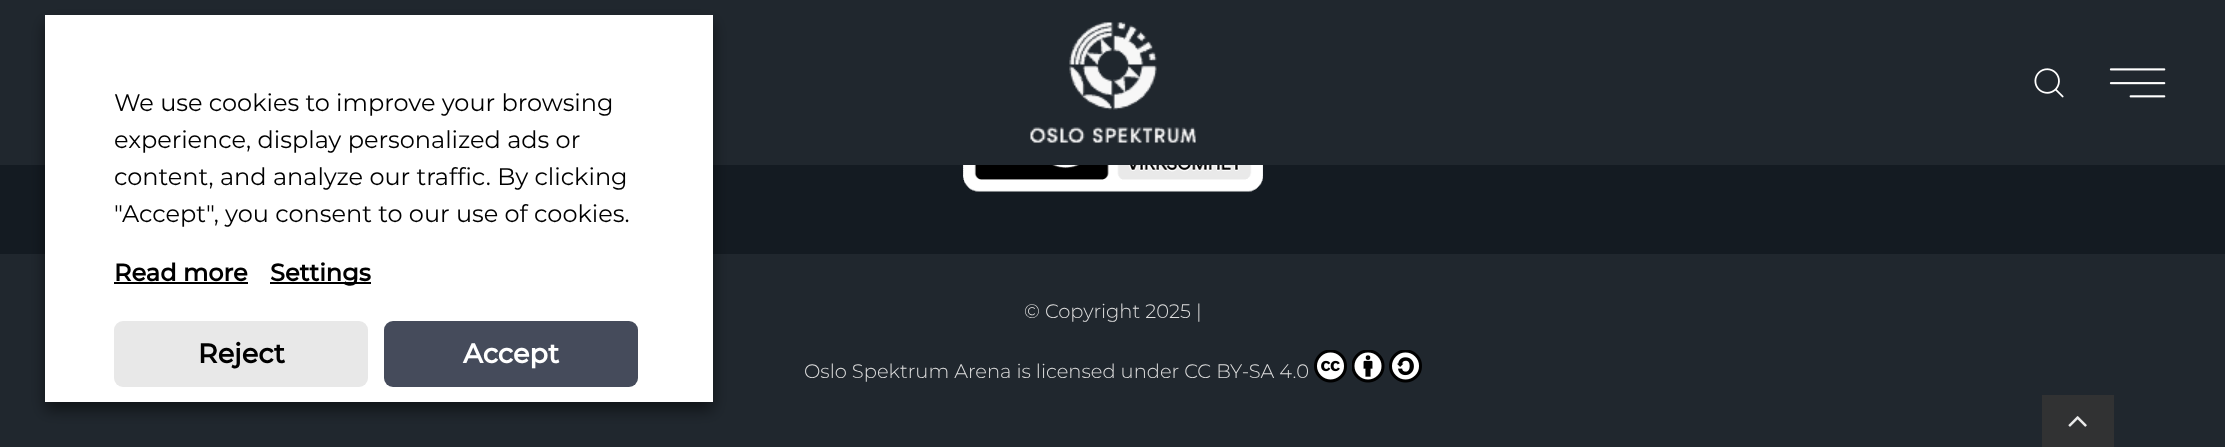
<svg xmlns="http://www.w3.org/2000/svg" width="2225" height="447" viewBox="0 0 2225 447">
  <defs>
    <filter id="blur1" x="-50%" y="-200%" width="200%" height="500%"><feGaussianBlur stdDeviation="7.5"/></filter>
  </defs>
  <rect width="100%" height="100%" fill="#141b22"/>
  <rect x="0" y="0" width="2225" height="165" fill="#20272e"/>
  <rect x="0" y="254" width="2225" height="193" fill="#20272e"/>
  <rect x="45" y="23" width="668" height="387" fill="#000000" fill-opacity="0.5" filter="url(#blur1)"/>
  <rect x="45" y="15" width="668" height="387" fill="#ffffff"/>
  <text x="114" y="111" font-family="Montserrat" font-size="24" fill="#000000">We use cookies to improve your browsing</text>
  <text x="114" y="148" font-family="Montserrat" font-size="24" fill="#000000">experience, display personalized ads or</text>
  <text x="114" y="185" font-family="Montserrat" font-size="24" fill="#000000">content, and analyze our traffic. By clicking</text>
  <text x="114" y="222" font-family="Montserrat" font-size="24" fill="#000000">"Accept", you consent to our use of cookies.</text>
  <text x="114" y="281" font-family="Montserrat" font-size="24" font-weight="bold" fill="#000000">Read more</text>
  <rect x="114" y="282" width="134" height="2" fill="#000000"/>
  <rect x="270" y="282" width="101" height="2" fill="#000000"/>
  <text x="270" y="281" font-family="Montserrat" font-size="24" font-weight="bold" fill="#000000">Settings</text>
  <rect x="114" y="321" width="254" height="66" rx="9" fill="#e8e8e8"/>
  <text x="198" y="363" font-family="Montserrat" font-size="27" font-weight="bold" fill="#000000">Reject</text>
  <rect x="384" y="321" width="254" height="66" rx="9" fill="#454b5b"/>
  <text x="463" y="363" font-family="Montserrat" font-size="27" font-weight="bold" fill="#ffffff">Accept</text>
  <image x="1030" y="22" width="166" height="121" href="img1.png"/>
  <image x="2034" y="68" width="30" height="30" href="img2.png"/>
  <image x="2109" y="68" width="57" height="30" href="img3.png"/>
  <image x="963" y="165" width="300" height="27" href="img4.png"/>
  <text x="1024" y="318" font-family="Montserrat" font-size="19.5" font-weight="300" fill="#dddddd">© Copyright 2025 |</text>
  <text x="804" y="378" font-family="Montserrat" font-size="19.5" font-weight="300" fill="#dddddd">Oslo Spektrum Arena is licensed under CC BY-SA 4.0</text>
  <image x="1314" y="350" width="33" height="33" href="img5.png"/>
  <image x="1352" y="350" width="33" height="33" href="img6.png"/>
  <image x="1389" y="350" width="33" height="33" href="img7.png"/>
  <rect x="2042" y="395" width="72" height="52" fill="#313233"/>
  <image x="2068" y="416" width="19" height="11" href="img8.png"/>
</svg>
